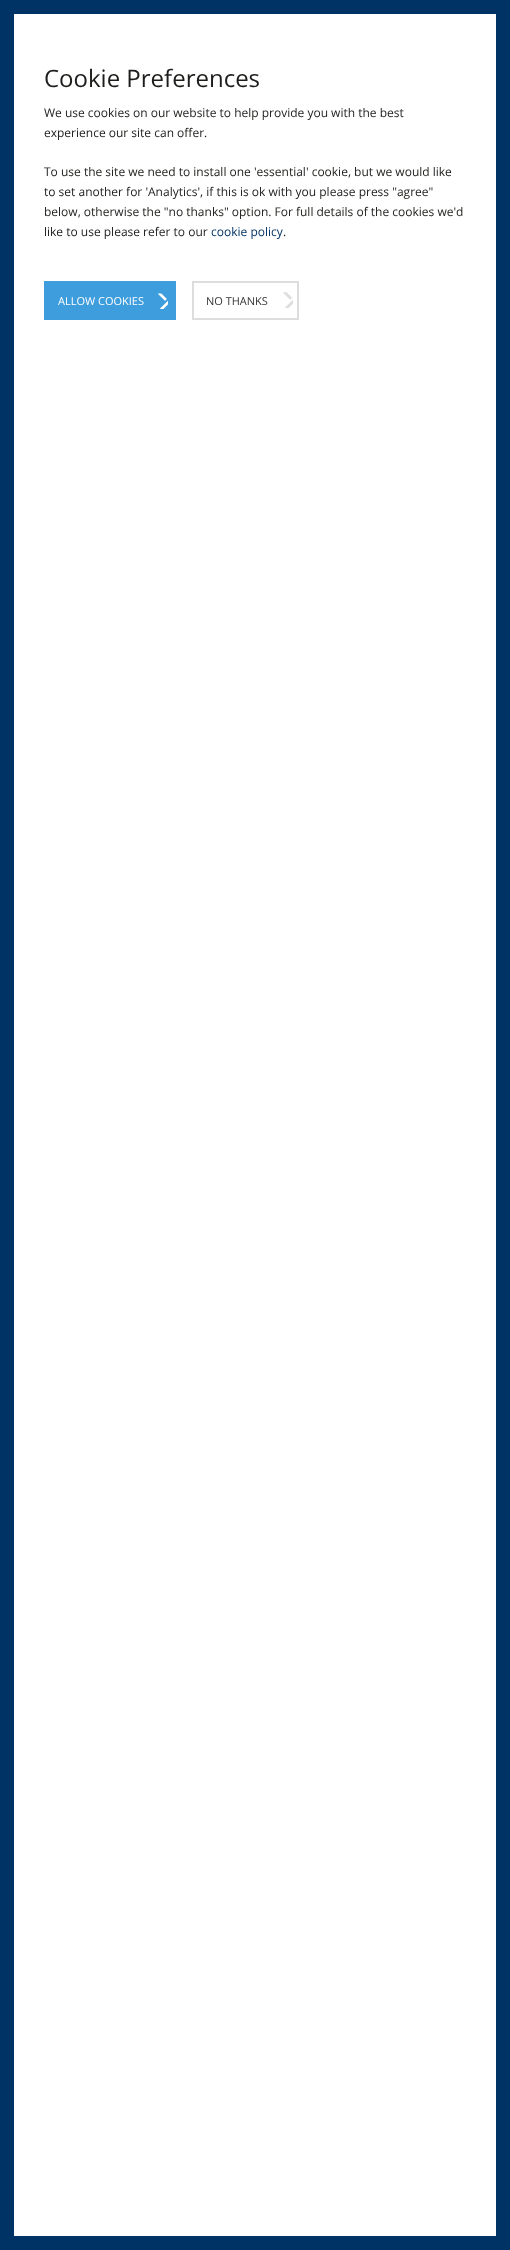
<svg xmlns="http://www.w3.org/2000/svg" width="510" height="2250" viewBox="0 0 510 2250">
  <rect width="100%" height="100%" fill="#ffffff"/>
  <path d="M7 7H503V2243H7Z" fill="none" stroke="#003365" stroke-width="14"/>
  <text x="44" y="87" font-family="Open Sans" font-size="24" fill="#1d1d1b">Cookie Preferences</text>
  <text x="44" y="117" font-family="Open Sans" font-size="12" fill="#1d1d1b">We use cookies on our website to help provide you with the best</text>
  <text x="44" y="137" font-family="Open Sans" font-size="12" fill="#1d1d1b">experience our site can offer.</text>
  <text x="44" y="176" font-family="Open Sans" font-size="12" fill="#1d1d1b">To use the site we need to install one 'essential' cookie, but we would like</text>
  <text x="44" y="196" font-family="Open Sans" font-size="12" fill="#1d1d1b">to set another for 'Analytics', if this is ok with you please press "agree"</text>
  <text x="44" y="216" font-family="Open Sans" font-size="12" fill="#1d1d1b">below, otherwise the "no thanks" option. For full details of the cookies we'd</text>
  <text x="44" y="236" font-family="Open Sans" font-size="12" fill="#1d1d1b">like to use please refer to our</text>
  <text x="211" y="236" font-family="Open Sans" font-size="12" fill="#003365">cookie policy</text>
  <text x="283" y="236" font-family="Open Sans" font-size="12" fill="#1d1d1b">.</text>
  <rect x="44" y="281" width="132" height="39" fill="#3d9ddd"/>
  <image x="158" y="293" width="10" height="16" href="img1.png"/>
  <text x="58" y="305" font-family="Open Sans" font-size="11" fill="#ffffff">ALLOW COOKIES</text>
  <image x="283" y="292" width="10" height="16" href="img2.png"/>
  <rect x="193" y="282" width="105" height="37" fill="none" stroke="#dddddd" stroke-width="2"/>
  <text x="206" y="305" font-family="Open Sans" font-size="11" fill="#333333">NO THANKS</text>
</svg>
